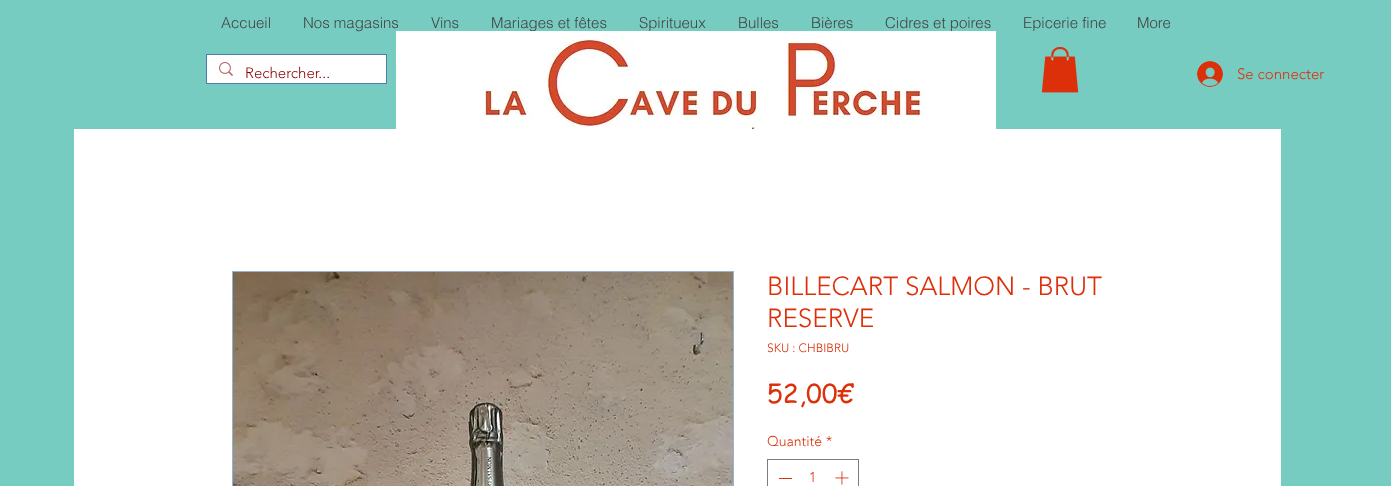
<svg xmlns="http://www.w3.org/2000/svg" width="1391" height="486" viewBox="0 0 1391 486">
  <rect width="100%" height="100%" fill="#77ccc1"/>
  <text x="221" y="28" font-family="helvetica" font-size="15" font-weight="300" fill="#444444">Accueil</text>
  <text x="303" y="28" font-family="helvetica" font-size="15" font-weight="300" fill="#444444">Nos magasins</text>
  <text x="431" y="28" font-family="helvetica" font-size="15" font-weight="300" fill="#444444">Vins</text>
  <text x="491" y="28" font-family="helvetica" font-size="15" font-weight="300" fill="#444444">Mariages et fêtes</text>
  <text x="639" y="28" font-family="helvetica" font-size="15" font-weight="300" fill="#444444">Spiritueux</text>
  <text x="738" y="28" font-family="helvetica" font-size="15" font-weight="300" fill="#444444">Bulles</text>
  <text x="811" y="28" font-family="helvetica" font-size="15" font-weight="300" fill="#444444">Bières</text>
  <text x="885" y="28" font-family="helvetica" font-size="15" font-weight="300" fill="#444444">Cidres et poires</text>
  <text x="1023" y="28" font-family="helvetica" font-size="15" font-weight="300" fill="#444444">Epicerie fine</text>
  <text x="1137" y="28" font-family="helvetica" font-size="15" font-weight="300" fill="#444444">More</text>
  <rect x="206.5" y="54.5" width="180" height="29" fill="none" stroke="#4e7cb0"/>
  <rect x="207" y="55" width="179" height="28" fill="#ffffff"/>
  <image x="219" y="62" width="14" height="14" href="img1.png"/>
  <text x="245" y="78" font-family="'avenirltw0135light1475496'" font-size="15" font-weight="300" fill="#8b0000">Rechercher...</text>
  <image x="396" y="31" width="600" height="98" href="img2.png"/>
  <image x="1041" y="47" width="38" height="46" href="img3.png"/>
  <image x="1197" y="61" width="26" height="26" href="img4.png"/>
  <text x="1237" y="79" font-family="'avenirltw0135light1475496'" font-size="15" font-weight="300" fill="#dc300b">Se connecter</text>
  <rect x="74" y="129" width="1207" height="357" fill="#ffffff"/>
  <rect x="232.5" y="271.5" width="501" height="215" fill="none" stroke="#93b3d4"/>
  <image x="233" y="272" width="500" height="214" href="img5.png"/>
  <text x="767" y="295" font-family="'avenirltw0135light1475496'" font-size="26" font-weight="300" fill="#dc300b">BILLECART SALMON - BRUT</text>
  <text x="767" y="327" font-family="'avenirltw0135light1475496'" font-size="26" font-weight="300" fill="#dc300b">RESERVE</text>
  <text x="767" y="352" font-family="'avenirltw0135light1475496'" font-size="12" font-weight="300" fill="#dc300b">SKU : CHBIBRU</text>
  <text x="767" y="403" font-family="'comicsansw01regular'" font-size="26" fill="#dc300b">52,00€</text>
  <text x="767" y="446" font-family="'avenirltw0135light1475496'" font-size="14" font-weight="300" fill="#dc300b">Quantité</text>
  <text x="826" y="446" font-family="'avenirltw0135light1475496'" font-size="14" font-weight="300" fill="#dc300b">*</text>
  <rect x="767.5" y="459.5" width="91" height="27" fill="none" stroke="#7d7c7a"/>
  <rect x="779" y="478" width="13" height="1" fill="#dc300b"/>
  <text x="809" y="482" font-family="'avenirltw0135light1475496'" font-size="14" font-weight="300" fill="#dc300b">1</text>
  <image x="835" y="471" width="14" height="14" href="img6.png"/>
</svg>
